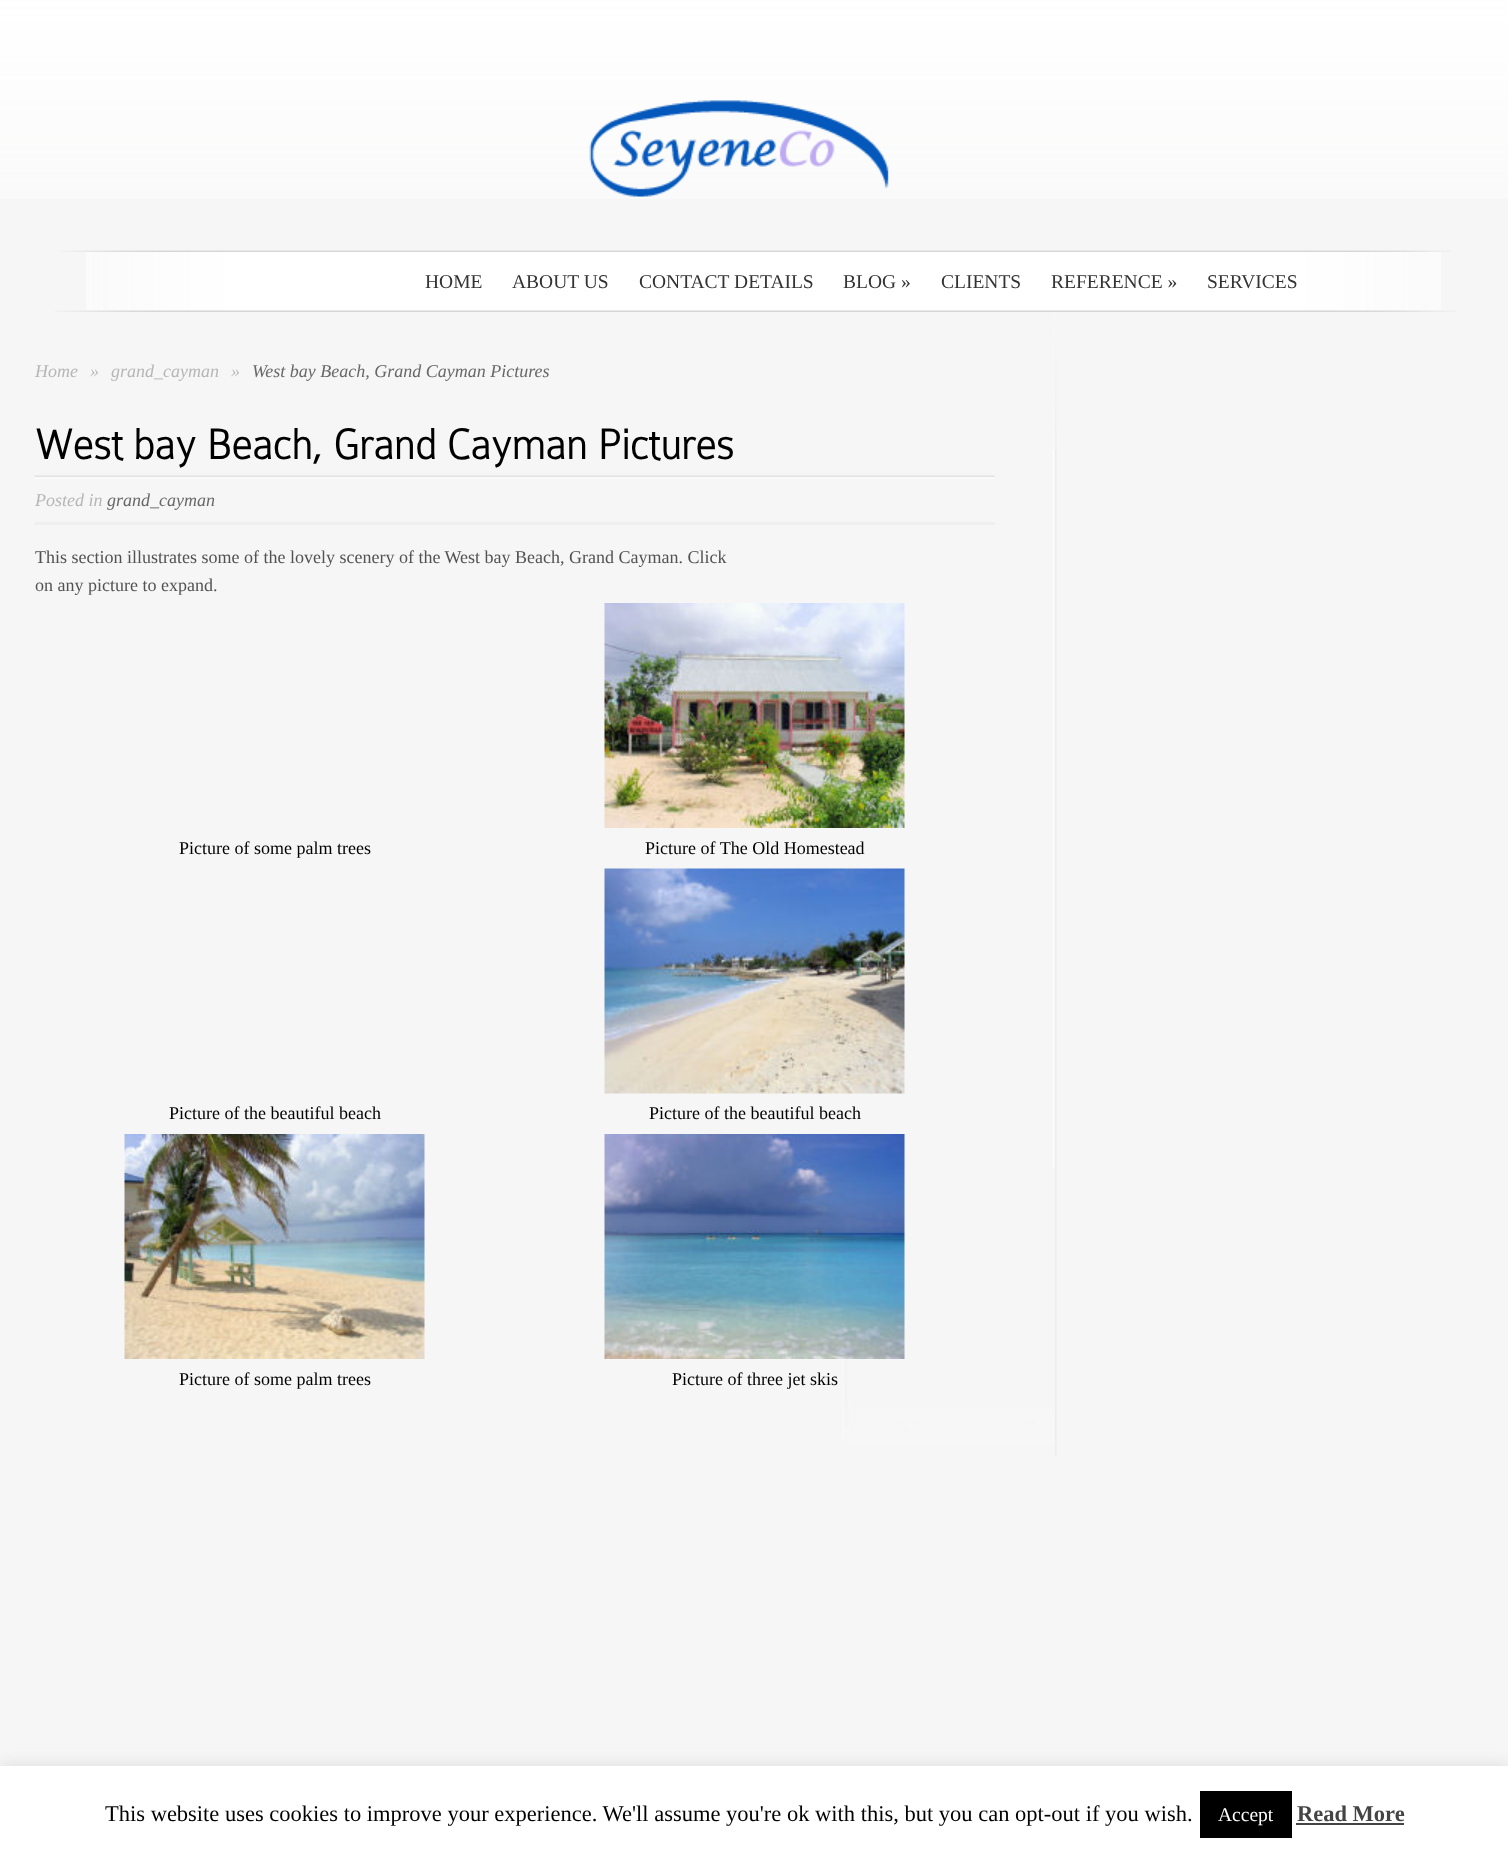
<svg xmlns="http://www.w3.org/2000/svg" width="1508" height="1855" viewBox="0 0 1508 1855">
  <defs>
    <filter id="blur1" x="-50%" y="-200%" width="200%" height="500%"><feGaussianBlur stdDeviation="7.5"/></filter>
  </defs>
  <rect width="100%" height="100%" fill="#f6f6f6"/>
  <image x="0" y="0" width="1508" height="199" href="img1.png"/>
  <image x="589" y="100" width="300" height="97" href="img2.png"/>
  <image x="86" y="250" width="1355" height="61" href="img3.png"/>
  <image x="59" y="250" width="1392" height="2" href="img4.png"/>
  <text x="425" y="288" font-family="Liberation Serif" font-size="19.5" fill="#333333">HOME</text>
  <text x="512" y="288" font-family="Liberation Serif" font-size="19.5" fill="#333333">ABOUT US</text>
  <text x="639" y="288" font-family="Liberation Serif" font-size="19.5" fill="#333333">CONTACT DETAILS</text>
  <text x="843" y="288" font-family="Liberation Serif" font-size="19.5" fill="#333333">BLOG »</text>
  <text x="941" y="288" font-family="Liberation Serif" font-size="19.5" fill="#333333">CLIENTS</text>
  <text x="1051" y="288" font-family="Liberation Serif" font-size="19.5" fill="#333333">REFERENCE »</text>
  <text x="1207" y="288" font-family="Liberation Serif" font-size="19.5" fill="#333333">SERVICES</text>
  <image x="55" y="310" width="1402" height="2" href="img5.png"/>
  <image x="1053" y="450" width="4" height="1007" href="img6.png"/>
  <image x="1053" y="312" width="4" height="138" href="img7.png"/>
  <image x="842" y="1168" width="212" height="288" href="img8.png"/>
  <text x="35" y="377" font-family="Liberation Serif" font-size="18" font-style="italic" fill="#b6b6b6">Home</text>
  <text x="90" y="377" font-family="Liberation Serif" font-size="18" font-style="italic" fill="#b6b6b6">»</text>
  <text x="111" y="377" font-family="Liberation Serif" font-size="18" font-style="italic" fill="#b6b6b6">grand_cayman</text>
  <text x="231" y="377" font-family="Liberation Serif" font-size="18" font-style="italic" fill="#b6b6b6">»</text>
  <text x="252" y="377" font-family="Liberation Serif" font-size="18" font-style="italic" fill="#686868">West bay Beach, Grand Cayman Pictures</text>
  <text x="35" y="459" font-family="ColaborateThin" font-size="45" font-weight="bold" fill="#000000">West bay Beach, Grand Cayman Pictures</text>
  <image x="34" y="475" width="961" height="4" href="img9.png"/>
  <text x="35" y="506" font-family="Liberation Serif" font-size="18" font-style="italic" fill="#b6b6b6">Posted in</text>
  <text x="107" y="506" font-family="Liberation Serif" font-size="18" font-style="italic" fill="#686868">grand_cayman</text>
  <rect x="34" y="522" width="961" height="3" fill="#efefef"/>
  <text x="35" y="563" font-family="Liberation Serif" font-size="18" fill="#525252">This section illustrates some of the lovely scenery of the West bay Beach, Grand Cayman. Click</text>
  <text x="35" y="591" font-family="Liberation Serif" font-size="18" fill="#525252">on any picture to expand.</text>
  <image x="604" y="603" width="301" height="225" href="img10.png"/>
  <text x="179" y="854" font-family="Liberation Serif" font-size="18" fill="#000000">Picture of some palm trees</text>
  <text x="645" y="854" font-family="Liberation Serif" font-size="18" fill="#000000">Picture of The Old Homestead</text>
  <image x="604" y="868" width="301" height="226" href="img11.png"/>
  <text x="169" y="1119" font-family="Liberation Serif" font-size="18" fill="#000000">Picture of the beautiful beach</text>
  <text x="649" y="1119" font-family="Liberation Serif" font-size="18" fill="#000000">Picture of the beautiful beach</text>
  <image x="124" y="1134" width="301" height="225" href="img12.png"/>
  <image x="604" y="1134" width="301" height="225" href="img13.png"/>
  <text x="179" y="1385" font-family="Liberation Serif" font-size="18" fill="#000000">Picture of some palm trees</text>
  <text x="672" y="1385" font-family="Liberation Serif" font-size="18" fill="#000000">Picture of three jet skis</text>
  <rect x="0" y="1764" width="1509" height="90" fill="#acabab" fill-opacity="0.3" filter="url(#blur1)"/>
  <rect x="0" y="1766" width="1508" height="89" fill="#ffffff"/>
  <text x="105" y="1821" font-family="Liberation Serif" font-size="22.5" fill="#000000">This website uses cookies to improve your experience. We'll assume you're ok with this, but you can opt-out if you wish.</text>
  <rect x="1200" y="1791" width="92" height="47" fill="#000000"/>
  <text x="1218" y="1821" font-family="Liberation Serif" font-size="19.5" fill="#ffffff">Accept</text>
  <text x="1297" y="1821" font-family="Liberation Serif" font-size="22.5" font-weight="bold" fill="#444444">Read More</text>
  <rect x="1296" y="1823" width="108" height="2" fill="#444444"/>
</svg>
